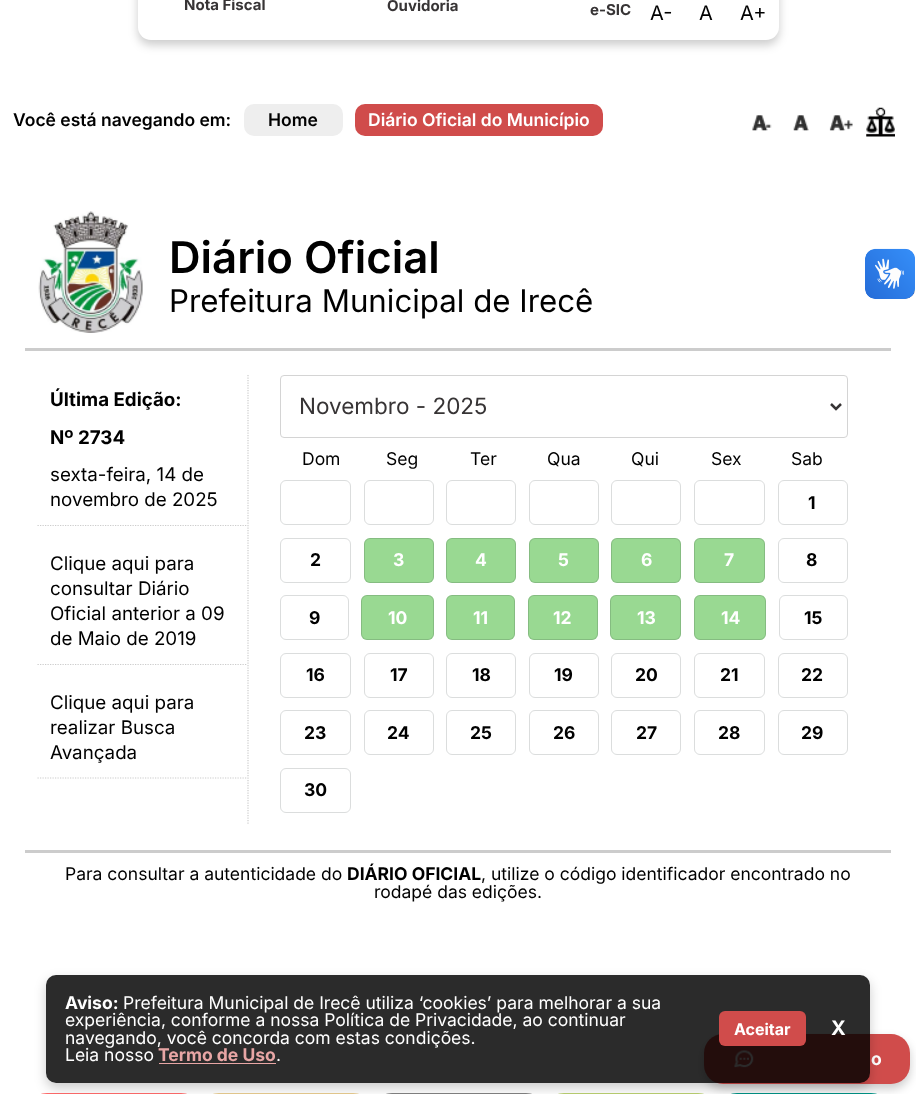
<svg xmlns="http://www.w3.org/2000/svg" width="916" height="1094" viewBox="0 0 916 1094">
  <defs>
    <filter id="blur1" x="-50%" y="-200%" width="200%" height="500%"><feGaussianBlur stdDeviation="5"/></filter>
    <clipPath id="clip1"><path d="M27 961H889V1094H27ZM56 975H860C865.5 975 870 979.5 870 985V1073C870 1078.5 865.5 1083 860 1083H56C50.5 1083 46 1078.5 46 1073V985C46 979.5 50.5 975 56 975Z" clip-rule="evenodd"/></clipPath>
    <filter id="blur2" x="-50%" y="-200%" width="200%" height="500%"><feGaussianBlur stdDeviation="6"/></filter>
  </defs>
  <rect width="100%" height="100%" fill="#ffffff"/>
  <rect x="138" y="-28" width="641" height="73" rx="13" fill="#000000" fill-opacity="0.2" filter="url(#blur1)"/>
  <rect x="138" y="-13" width="641" height="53" rx="13" fill="#ffffff"/>
  <text x="184" y="10" font-family="Inter" font-size="15" font-weight="bold" fill="#373435">Nota Fiscal</text>
  <text x="387" y="11" font-family="Inter" font-size="15" font-weight="bold" fill="#373435">Ouvidoria</text>
  <text x="590" y="15" font-family="Inter" font-size="15" font-weight="bold" fill="#373435">e-SIC</text>
  <text x="650" y="20" font-family="Inter" font-size="20" fill="#000000">A-</text>
  <text x="699" y="20" font-family="Inter" font-size="20" fill="#000000">A</text>
  <text x="740" y="20" font-family="Inter" font-size="20" fill="#000000">A+</text>
  <rect x="551.5" y="1093.5" width="159" height="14" rx="12.5" fill="none" stroke="#bad072"/>
  <rect x="724.5" y="1093.5" width="159" height="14" rx="12.5" fill="none" stroke="#009688"/>
  <rect x="704" y="1039" width="206" height="50" rx="19" fill="#000000" fill-opacity="0.2" filter="url(#blur1)"/>
  <rect x="704" y="1034" width="206" height="50" rx="19" fill="#d04c4b"/>
  <image x="734" y="1050" width="20" height="18" href="img1.png"/>
  <text x="871" y="1065" font-family="Inter" font-size="17.5" font-weight="bold" fill="#ffffff">o</text>
  <text x="13" y="126" font-family="Inter" font-size="17.5" font-weight="600" fill="#000000">Você está navegando em:</text>
  <rect x="244" y="104" width="99" height="32" rx="10" fill="#eeeeee"/>
  <text x="268" y="126" font-family="Inter" font-size="17.5" font-weight="600" fill="#000000">Home</text>
  <rect x="355" y="104" width="248" height="32" rx="10" fill="#d04c4b"/>
  <text x="368" y="126" font-family="Inter" font-size="17.5" font-weight="600" fill="#ffffff">Diário Oficial do Município</text>
  <image x="752" y="115" width="20" height="16" href="img2.png"/>
  <image x="793" y="115" width="16" height="16" href="img3.png"/>
  <image x="829" y="115" width="24" height="16" href="img4.png"/>
  <image x="866" y="107" width="29" height="30" href="img5.png"/>
  <rect x="25" y="348" width="866" height="3" fill="#cccccc"/>
  <image x="38" y="211" width="105" height="122" href="img6.png"/>
  <text x="169" y="273" font-family="Inter" font-size="43.75" font-weight="600" fill="#000000">Diário Oficial</text>
  <text x="169" y="312" font-family="Inter" font-size="31.25" fill="#000000">Prefeitura Municipal de Irecê</text>
  <rect x="25" y="850" width="866" height="3" fill="#cccccc"/>
  <path d="M37.5 525.5H247.5" fill="none" stroke="#cccccc" stroke-width="1.2" stroke-dasharray="1.25 1.25"/>
  <text x="50" y="406" font-family="Inter" font-size="18.75" font-weight="bold" fill="#000000">Última Edição:</text>
  <text x="50" y="444" font-family="Inter" font-size="18.75" font-weight="bold" fill="#000000">Nº 2734</text>
  <text x="50" y="481" font-family="Inter" font-size="18.75" fill="#000000">sexta-feira, 14 de</text>
  <text x="50" y="506" font-family="Inter" font-size="18.75" fill="#000000">novembro de 2025</text>
  <path d="M37.5 664.5H247.5" fill="none" stroke="#cccccc" stroke-width="1.2" stroke-dasharray="1.25 1.25"/>
  <text x="50" y="570" font-family="Inter" font-size="18.75" fill="#000000">Clique aqui para</text>
  <text x="50" y="595" font-family="Inter" font-size="18.75" fill="#000000">consultar Diário</text>
  <text x="50" y="620" font-family="Inter" font-size="18.75" fill="#000000">Oficial anterior a 09</text>
  <text x="50" y="645" font-family="Inter" font-size="18.75" fill="#000000">de Maio de 2019</text>
  <path d="M37.5 778H247.5" fill="none" stroke="#cccccc" stroke-width="1.2" stroke-dasharray="1.25 1.25"/>
  <text x="50" y="709" font-family="Inter" font-size="18.75" fill="#000000">Clique aqui para</text>
  <text x="50" y="734" font-family="Inter" font-size="18.75" fill="#000000">realizar Busca</text>
  <text x="50" y="759" font-family="Inter" font-size="18.75" fill="#000000">Avançada</text>
  <path d="M248 375V825" fill="none" stroke="#cccccc" stroke-width="1.2" stroke-dasharray="1.25 1.25"/>
  <rect x="280.5" y="375.5" width="567" height="62" rx="3.5" fill="none" stroke="#d4d4d4"/>
  <path d="M831 404L836 409L841 404" fill="none" stroke="#373435" stroke-width="2.5"/>
  <text x="299" y="414" font-family="Inter" font-size="22.5" fill="#373435">Novembro - 2025</text>
  <text x="302" y="465" font-family="Inter" font-size="17.5" fill="#000000">Dom</text>
  <text x="386" y="465" font-family="Inter" font-size="17.5" fill="#000000">Seg</text>
  <text x="470" y="465" font-family="Inter" font-size="17.5" fill="#000000">Ter</text>
  <text x="547" y="465" font-family="Inter" font-size="17.5" fill="#000000">Qua</text>
  <text x="631" y="465" font-family="Inter" font-size="17.5" fill="#000000">Qui</text>
  <text x="711" y="465" font-family="Inter" font-size="17.5" fill="#000000">Sex</text>
  <text x="791" y="465" font-family="Inter" font-size="17.5" fill="#000000">Sab</text>
  <rect x="280.5" y="480.5" width="70" height="44" rx="5.5" fill="none" stroke="#dbdddd"/>
  <rect x="364.5" y="480.5" width="69" height="44" rx="5.5" fill="none" stroke="#dbdddd"/>
  <rect x="446.5" y="480.5" width="69" height="44" rx="5.5" fill="none" stroke="#dbdddd"/>
  <rect x="529.5" y="480.5" width="69" height="44" rx="5.5" fill="none" stroke="#dbdddd"/>
  <rect x="611.5" y="480.5" width="69" height="44" rx="5.5" fill="none" stroke="#dbdddd"/>
  <rect x="694.5" y="480.5" width="70" height="44" rx="5.5" fill="none" stroke="#dbdddd"/>
  <rect x="778.5" y="480.5" width="69" height="44" rx="5.5" fill="none" stroke="#dbdddd"/>
  <text x="808" y="509" font-family="Inter" font-size="17.5" font-weight="bold" fill="#000000">1</text>
  <rect x="280.5" y="538.5" width="70" height="44" rx="5.5" fill="none" stroke="#dbdddd"/>
  <text x="310" y="566" font-family="Inter" font-size="17.5" font-weight="bold" fill="#000000">2</text>
  <rect x="364" y="538" width="70" height="45" rx="6" fill="#99d992"/>
  <rect x="364.5" y="538.5" width="69" height="44" rx="5.5" fill="none" stroke="#1e282c" stroke-opacity="0.16"/>
  <text x="393" y="566" font-family="Inter" font-size="17.5" font-weight="bold" fill="#ffffff">3</text>
  <rect x="446" y="538" width="70" height="45" rx="6" fill="#99d992"/>
  <rect x="446.5" y="538.5" width="69" height="44" rx="5.5" fill="none" stroke="#1e282c" stroke-opacity="0.16"/>
  <text x="475" y="566" font-family="Inter" font-size="17.5" font-weight="bold" fill="#ffffff">4</text>
  <rect x="529" y="538" width="70" height="45" rx="6" fill="#99d992"/>
  <rect x="529.5" y="538.5" width="69" height="44" rx="5.5" fill="none" stroke="#1e282c" stroke-opacity="0.16"/>
  <text x="558" y="566" font-family="Inter" font-size="17.5" font-weight="bold" fill="#ffffff">5</text>
  <rect x="611" y="538" width="70" height="45" rx="6" fill="#99d992"/>
  <rect x="611.5" y="538.5" width="69" height="44" rx="5.5" fill="none" stroke="#1e282c" stroke-opacity="0.16"/>
  <text x="641" y="566" font-family="Inter" font-size="17.5" font-weight="bold" fill="#ffffff">6</text>
  <rect x="694" y="538" width="71" height="45" rx="6" fill="#99d992"/>
  <rect x="694.5" y="538.5" width="70" height="44" rx="5.5" fill="none" stroke="#1e282c" stroke-opacity="0.16"/>
  <text x="724" y="566" font-family="Inter" font-size="17.5" font-weight="bold" fill="#ffffff">7</text>
  <rect x="778.5" y="538.5" width="69" height="44" rx="5.5" fill="none" stroke="#dbdddd"/>
  <text x="806" y="566" font-family="Inter" font-size="17.5" font-weight="bold" fill="#000000">8</text>
  <rect x="280.5" y="595.5" width="68" height="44" rx="5.5" fill="none" stroke="#dbdddd"/>
  <text x="309" y="624" font-family="Inter" font-size="17.5" font-weight="bold" fill="#000000">9</text>
  <rect x="361" y="595" width="73" height="45" rx="6" fill="#99d992"/>
  <rect x="361.5" y="595.5" width="72" height="44" rx="5.5" fill="none" stroke="#1e282c" stroke-opacity="0.16"/>
  <text x="388" y="624" font-family="Inter" font-size="17.5" font-weight="bold" fill="#ffffff">10</text>
  <rect x="446" y="595" width="69" height="45" rx="6" fill="#99d992"/>
  <rect x="446.5" y="595.5" width="68" height="44" rx="5.5" fill="none" stroke="#1e282c" stroke-opacity="0.16"/>
  <text x="473" y="624" font-family="Inter" font-size="17.5" font-weight="bold" fill="#ffffff">11</text>
  <rect x="528" y="595" width="70" height="45" rx="6" fill="#99d992"/>
  <rect x="528.5" y="595.5" width="69" height="44" rx="5.5" fill="none" stroke="#1e282c" stroke-opacity="0.16"/>
  <text x="553" y="624" font-family="Inter" font-size="17.5" font-weight="bold" fill="#ffffff">12</text>
  <rect x="610" y="595" width="71" height="45" rx="6" fill="#99d992"/>
  <rect x="610.5" y="595.5" width="70" height="44" rx="5.5" fill="none" stroke="#1e282c" stroke-opacity="0.16"/>
  <text x="637" y="624" font-family="Inter" font-size="17.5" font-weight="bold" fill="#ffffff">13</text>
  <rect x="694" y="595" width="72" height="45" rx="6" fill="#99d992"/>
  <rect x="694.5" y="595.5" width="71" height="44" rx="5.5" fill="none" stroke="#1e282c" stroke-opacity="0.16"/>
  <text x="721" y="624" font-family="Inter" font-size="17.5" font-weight="bold" fill="#ffffff">14</text>
  <rect x="779.5" y="595.5" width="68" height="44" rx="5.5" fill="none" stroke="#dbdddd"/>
  <text x="804" y="624" font-family="Inter" font-size="17.5" font-weight="bold" fill="#000000">15</text>
  <rect x="280.5" y="653.5" width="70" height="44" rx="5.5" fill="none" stroke="#dbdddd"/>
  <text x="306" y="681" font-family="Inter" font-size="17.5" font-weight="bold" fill="#000000">16</text>
  <rect x="364.5" y="653.5" width="69" height="44" rx="5.5" fill="none" stroke="#dbdddd"/>
  <text x="390" y="681" font-family="Inter" font-size="17.5" font-weight="bold" fill="#000000">17</text>
  <rect x="446.5" y="653.5" width="69" height="44" rx="5.5" fill="none" stroke="#dbdddd"/>
  <text x="472" y="681" font-family="Inter" font-size="17.5" font-weight="bold" fill="#000000">18</text>
  <rect x="529.5" y="653.5" width="69" height="44" rx="5.5" fill="none" stroke="#dbdddd"/>
  <text x="554" y="681" font-family="Inter" font-size="17.5" font-weight="bold" fill="#000000">19</text>
  <rect x="611.5" y="653.5" width="69" height="44" rx="5.5" fill="none" stroke="#dbdddd"/>
  <text x="635" y="681" font-family="Inter" font-size="17.5" font-weight="bold" fill="#000000">20</text>
  <rect x="694.5" y="653.5" width="70" height="44" rx="5.5" fill="none" stroke="#dbdddd"/>
  <text x="720" y="681" font-family="Inter" font-size="17.5" font-weight="bold" fill="#000000">21</text>
  <rect x="778.5" y="653.5" width="69" height="44" rx="5.5" fill="none" stroke="#dbdddd"/>
  <text x="801" y="681" font-family="Inter" font-size="17.5" font-weight="bold" fill="#000000">22</text>
  <rect x="280.5" y="710.5" width="70" height="44" rx="5.5" fill="none" stroke="#dbdddd"/>
  <text x="304" y="739" font-family="Inter" font-size="17.5" font-weight="bold" fill="#000000">23</text>
  <rect x="364.5" y="710.5" width="69" height="44" rx="5.5" fill="none" stroke="#dbdddd"/>
  <text x="387" y="739" font-family="Inter" font-size="17.5" font-weight="bold" fill="#000000">24</text>
  <rect x="446.5" y="710.5" width="69" height="44" rx="5.5" fill="none" stroke="#dbdddd"/>
  <text x="470" y="739" font-family="Inter" font-size="17.5" font-weight="bold" fill="#000000">25</text>
  <rect x="529.5" y="710.5" width="69" height="44" rx="5.5" fill="none" stroke="#dbdddd"/>
  <text x="553" y="739" font-family="Inter" font-size="17.5" font-weight="bold" fill="#000000">26</text>
  <rect x="611.5" y="710.5" width="69" height="44" rx="5.5" fill="none" stroke="#dbdddd"/>
  <text x="636" y="739" font-family="Inter" font-size="17.5" font-weight="bold" fill="#000000">27</text>
  <rect x="694.5" y="710.5" width="70" height="44" rx="5.5" fill="none" stroke="#dbdddd"/>
  <text x="718" y="739" font-family="Inter" font-size="17.5" font-weight="bold" fill="#000000">28</text>
  <rect x="778.5" y="710.5" width="69" height="44" rx="5.5" fill="none" stroke="#dbdddd"/>
  <text x="801" y="739" font-family="Inter" font-size="17.5" font-weight="bold" fill="#000000">29</text>
  <rect x="280.5" y="768.5" width="70" height="44" rx="5.5" fill="none" stroke="#dbdddd"/>
  <text x="304" y="796" font-family="Inter" font-size="17.5" font-weight="bold" fill="#000000">30</text>
  <text x="65" y="880" font-family="Inter" font-size="17.5" fill="#000000">Para consultar a autenticidade do</text>
  <text x="347" y="880" font-family="Inter" font-size="17.5" font-weight="bold" fill="#000000">DIÁRIO OFICIAL</text>
  <text x="481" y="880" font-family="Inter" font-size="17.5" fill="#000000">, utilize o código identificador encontrado no</text>
  <text x="374" y="898" font-family="Inter" font-size="17.5" fill="#000000">rodapé das edições.</text>
  <rect x="34.5" y="1093.5" width="159" height="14" rx="12.5" fill="none" stroke="#ff6b6b"/>
  <rect x="206.5" y="1093.5" width="159" height="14" rx="12.5" fill="none" stroke="#e7cb8f"/>
  <rect x="379.5" y="1093.5" width="159" height="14" rx="12.5" fill="none" stroke="#828282"/>
  <image x="865" y="248" width="50" height="51" href="img7.png"/>
  <image x="865" y="249" width="50" height="50" href="img8.png"/>
  <g clip-path="url(#clip1)">
    <rect x="46" y="980" width="824" height="108" rx="10" fill="#000000" fill-opacity="0.2" filter="url(#blur2)"/>
  </g>
  <rect x="46" y="975" width="824" height="108" rx="10" fill="#000000" fill-opacity="0.83"/>
  <text x="65" y="1009" font-family="Inter" font-size="17.5" font-weight="bold" fill="#ffffff">Aviso:</text>
  <text x="123" y="1009" font-family="Inter" font-size="17.5" fill="#ffffff">Prefeitura Municipal de Irecê utiliza ‘cookies’ para melhorar a sua</text>
  <text x="65" y="1026" font-family="Inter" font-size="17.5" fill="#ffffff">experiência, conforme a nossa Política de Privacidade, ao continuar</text>
  <text x="65" y="1044" font-family="Inter" font-size="17.5" fill="#ffffff">navegando, você concorda com estas condições.</text>
  <text x="65" y="1061" font-family="Inter" font-size="17.5" fill="#ffffff">Leia nosso</text>
  <text x="158" y="1061" font-family="Inter" font-size="17.5" font-weight="bold" fill="#e8a6a5">Termo de Uso</text>
  <rect x="159" y="1063" width="117" height="1" fill="#e8a6a5"/>
  <text x="276" y="1061" font-family="Inter" font-size="17.5" fill="#ffffff">.</text>
  <rect x="719" y="1011" width="87" height="35" rx="6" fill="#d04c4b"/>
  <text x="734" y="1035" font-family="Inter" font-size="16" font-weight="bold" fill="#ffffff">Aceitar</text>
  <text x="831" y="1035" font-family="Inter" font-size="20" font-weight="bold" fill="#ffffff">X</text>
</svg>
